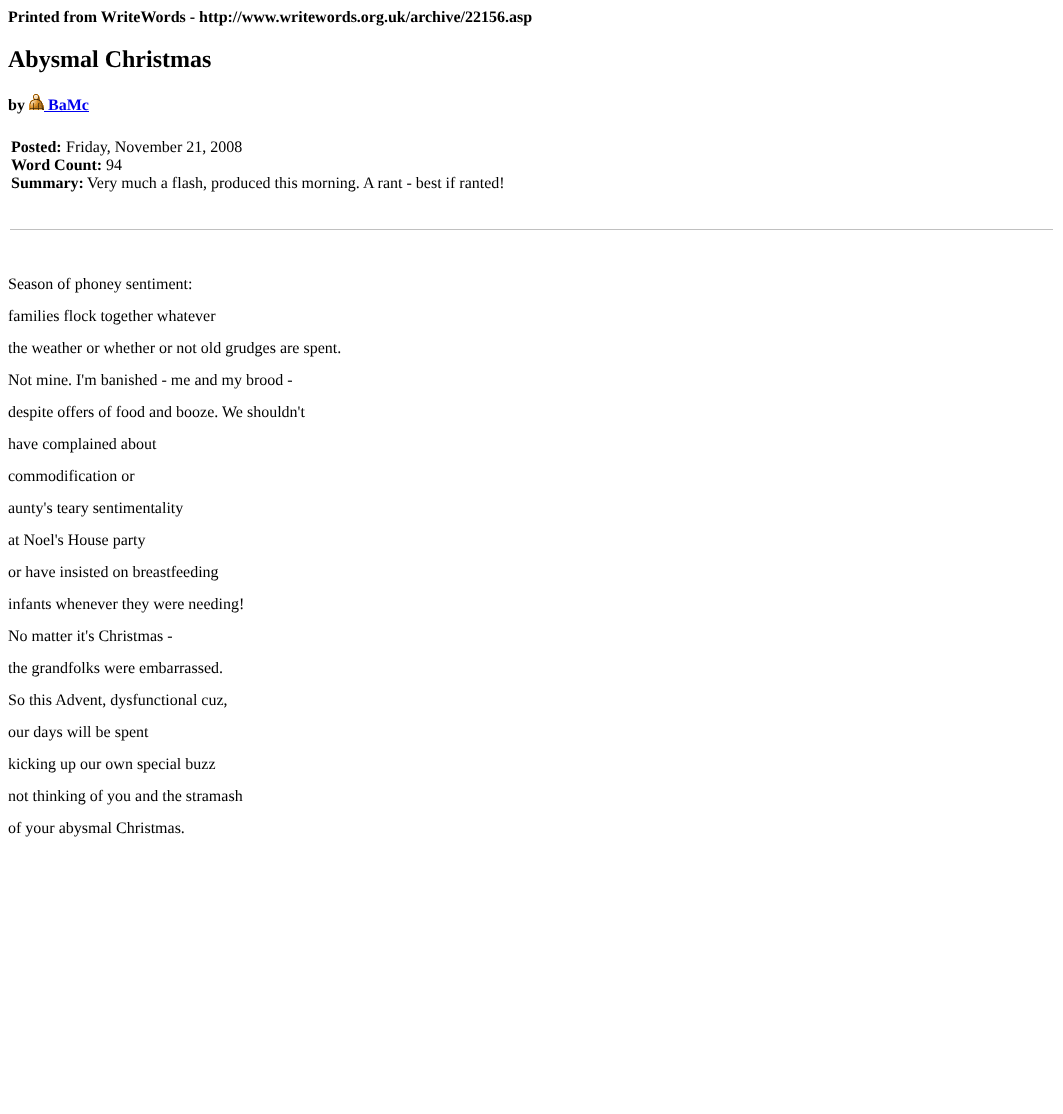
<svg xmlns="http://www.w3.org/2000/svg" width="1063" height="1114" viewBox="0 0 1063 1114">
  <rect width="100%" height="100%" fill="#ffffff"/>
  <text x="8" y="22" font-family="Liberation Serif" font-size="16" font-weight="bold" fill="#000000">Printed from WriteWords - http://www.writewords.org.uk/archive/22156.asp</text>
  <text x="8" y="67" font-family="Liberation Serif" font-size="24" font-weight="bold" fill="#000000">Abysmal Christmas</text>
  <text x="8" y="110" font-family="Liberation Serif" font-size="16" font-weight="bold" fill="#000000">by</text>
  <image x="29" y="94" width="15" height="16" href="img1.png"/>
  <text x="48" y="110" font-family="Liberation Serif" font-size="16" font-weight="bold" fill="#0000ee">BaMc</text>
  <rect x="44" y="111" width="45" height="1" fill="#0000ee"/>
  <rect x="10" y="229" width="1043" height="1" fill="#c0c0c0"/>
  <text x="11" y="152" font-family="Liberation Serif" font-size="16" font-weight="bold" fill="#000000">Posted:</text>
  <text x="66" y="152" font-family="Liberation Serif" font-size="16" fill="#000000">Friday, November 21, 2008</text>
  <text x="11" y="170" font-family="Liberation Serif" font-size="16" font-weight="bold" fill="#000000">Word Count:</text>
  <text x="106" y="170" font-family="Liberation Serif" font-size="16" fill="#000000">94</text>
  <text x="11" y="188" font-family="Liberation Serif" font-size="16" font-weight="bold" fill="#000000">Summary:</text>
  <text x="87" y="188" font-family="Liberation Serif" font-size="16" fill="#000000">Very much a flash, produced this morning. A rant - best if ranted!</text>
  <text x="8" y="289" font-family="Liberation Serif" font-size="16" fill="#000000">Season of phoney sentiment:</text>
  <text x="8" y="321" font-family="Liberation Serif" font-size="16" fill="#000000">families flock together whatever</text>
  <text x="8" y="353" font-family="Liberation Serif" font-size="16" fill="#000000">the weather or whether or not old grudges are spent.</text>
  <text x="8" y="385" font-family="Liberation Serif" font-size="16" fill="#000000">Not mine. I'm banished - me and my brood -</text>
  <text x="8" y="417" font-family="Liberation Serif" font-size="16" fill="#000000">despite offers of food and booze. We shouldn't</text>
  <text x="8" y="449" font-family="Liberation Serif" font-size="16" fill="#000000">have complained about</text>
  <text x="8" y="481" font-family="Liberation Serif" font-size="16" fill="#000000">commodification or</text>
  <text x="8" y="513" font-family="Liberation Serif" font-size="16" fill="#000000">aunty's teary sentimentality</text>
  <text x="8" y="545" font-family="Liberation Serif" font-size="16" fill="#000000">at Noel's House party</text>
  <text x="8" y="577" font-family="Liberation Serif" font-size="16" fill="#000000">or have insisted on breastfeeding</text>
  <text x="8" y="609" font-family="Liberation Serif" font-size="16" fill="#000000">infants whenever they were needing!</text>
  <text x="8" y="641" font-family="Liberation Serif" font-size="16" fill="#000000">No matter it's Christmas -</text>
  <text x="8" y="673" font-family="Liberation Serif" font-size="16" fill="#000000">the grandfolks were embarrassed.</text>
  <text x="8" y="705" font-family="Liberation Serif" font-size="16" fill="#000000">So this Advent, dysfunctional cuz,</text>
  <text x="8" y="737" font-family="Liberation Serif" font-size="16" fill="#000000">our days will be spent</text>
  <text x="8" y="769" font-family="Liberation Serif" font-size="16" fill="#000000">kicking up our own special buzz</text>
  <text x="8" y="801" font-family="Liberation Serif" font-size="16" fill="#000000">not thinking of you and the stramash</text>
  <text x="8" y="833" font-family="Liberation Serif" font-size="16" fill="#000000">of your abysmal Christmas.</text>
</svg>
